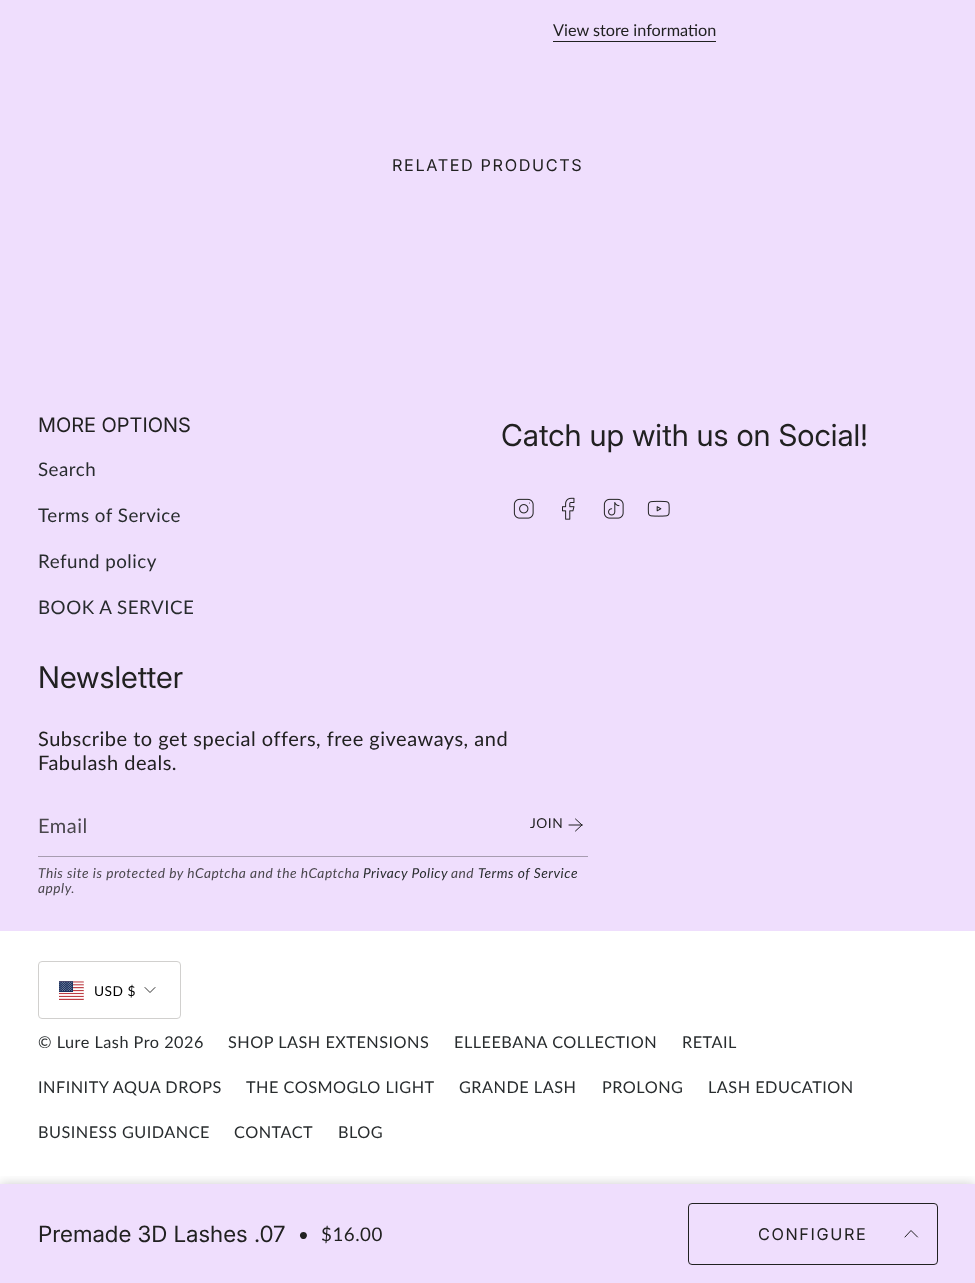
<svg xmlns="http://www.w3.org/2000/svg" width="975" height="1283" viewBox="0 0 975 1283">
  <defs>
    <clipPath id="clip1"><rect x="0" y="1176" width="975" height="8"/></clipPath>
    <filter id="blur1" x="-50%" y="-200%" width="200%" height="500%"><feGaussianBlur stdDeviation="6"/></filter>
  </defs>
  <rect width="100%" height="100%" fill="#efdefd"/>
  <rect x="553" y="41" width="163" height="1" fill="#212121"/>
  <text x="553" y="36" font-family="Lato" font-size="16.25" fill="#212121">View store information</text>
  <rect x="0" y="931" width="975" height="253" fill="#ffffff"/>
  <g clip-path="url(#clip1)">
    <rect x="0" y="1184" width="975" height="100" fill="#000000" fill-opacity="0.2" filter="url(#blur1)"/>
  </g>
  <text x="38" y="1242" font-family="'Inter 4'" font-size="22.5" fill="#212121">Premade 3D Lashes .07</text>
  <text x="298" y="1241" font-family="Lato" font-size="18.75" letter-spacing="0.5" fill="#212121">•</text>
  <text x="321" y="1241" font-family="Lato" font-size="18.75" letter-spacing="0.5" fill="#212121">$16.00</text>
  <rect x="688.5" y="1203.5" width="249" height="61" rx="3.5" fill="none" stroke="#212121"/>
  <text x="758" y="1240" font-family="'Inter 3'" font-size="16.25" letter-spacing="1.6" fill="#212121">CONFIGURE</text>
  <path d="M905 1237L911 1230.5L917.5 1237" fill="none" stroke="#212121" stroke-linecap="round" stroke-linejoin="round"/>
  <text x="392" y="171" font-family="'Inter 3'" font-size="16.25" letter-spacing="1.6" fill="#212121">RELATED PRODUCTS</text>
  <text x="38" y="432" font-family="'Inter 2'" font-size="20" fill="#212121">MORE OPTIONS</text>
  <text x="38" y="476" font-family="Lato" font-size="18.75" letter-spacing="0.5" fill="#282c2e">Search</text>
  <text x="38" y="522" font-family="Lato" font-size="18.75" letter-spacing="0.5" fill="#282c2e">Terms of Service</text>
  <text x="38" y="568" font-family="Lato" font-size="18.75" letter-spacing="0.5" fill="#282c2e">Refund policy</text>
  <text x="38" y="614" font-family="Lato" font-size="18.75" letter-spacing="0.5" fill="#282c2e">BOOK A SERVICE</text>
  <text x="501" y="446" font-family="Inter" font-size="30" fill="#212121">Catch up with us on Social!</text>
  <image x="513" y="498" width="21" height="21" href="img1.png"/>
  <image x="562" y="497" width="13" height="23" href="img2.png"/>
  <image x="603" y="498" width="21" height="21" href="img3.png"/>
  <image x="647" y="500" width="23" height="17" href="img4.png"/>
  <text x="38" y="688" font-family="Inter" font-size="30" fill="#212121">Newsletter</text>
  <text x="38" y="746" font-family="Lato" font-size="20" letter-spacing="0.5" fill="#212121">Subscribe to get special offers, free giveaways, and</text>
  <text x="38" y="770" font-family="Lato" font-size="20" letter-spacing="0.5" fill="#212121">Fabulash deals.</text>
  <rect x="38" y="856" width="550" height="1" fill="#a79cb0"/>
  <text x="38" y="833" font-family="Lato" font-size="20" letter-spacing="0.5" fill="#4a474d">Email</text>
  <text x="530" y="828" font-family="Lato" font-size="13.75" letter-spacing="0.5" fill="#212121">JOIN</text>
  <path d="M569 825H582M582 825L575.5 819M582 825L575.5 831" fill="none" stroke="#212121" stroke-linecap="round" stroke-linejoin="round"/>
  <text x="38" y="878" font-family="Lato" font-size="13.75" font-style="italic" letter-spacing="0.5" fill="#4a474d">This site is protected by hCaptcha and the hCaptcha</text>
  <text x="363" y="878" font-family="Lato" font-size="13.75" font-style="italic" letter-spacing="0.5" fill="#282c2e">Privacy Policy</text>
  <text x="451" y="878" font-family="Lato" font-size="13.75" font-style="italic" letter-spacing="0.5" fill="#4a474d">and</text>
  <text x="478" y="878" font-family="Lato" font-size="13.75" font-style="italic" letter-spacing="0.5" fill="#282c2e">Terms of Service</text>
  <text x="38" y="893" font-family="Lato" font-size="13.75" font-style="italic" letter-spacing="0.5" fill="#4a474d">apply.</text>
  <rect x="38.5" y="961.5" width="142" height="57" rx="3.5" fill="none" stroke="#d1d0ce"/>
  <image x="59" y="981" width="25" height="19" href="img5.png"/>
  <text x="94" y="996" font-family="Lato" font-size="13.75" letter-spacing="0.5" fill="#000000">USD $</text>
  <path d="M145 987.5L150 992.5L155 987.5" fill="none" stroke="#000000" stroke-width="0.8" stroke-linecap="round" stroke-linejoin="round"/>
  <text x="38" y="1048" font-family="Lato" font-size="16.25" letter-spacing="0.5" fill="#282c2e">© Lure Lash Pro 2026</text>
  <text x="228" y="1048" font-family="Lato" font-size="16.25" letter-spacing="0.5" fill="#282c2e">SHOP LASH EXTENSIONS</text>
  <text x="454" y="1048" font-family="Lato" font-size="16.25" letter-spacing="0.5" fill="#282c2e">ELLEEBANA COLLECTION</text>
  <text x="682" y="1048" font-family="Lato" font-size="16.25" letter-spacing="0.5" fill="#282c2e">RETAIL</text>
  <text x="38" y="1093" font-family="Lato" font-size="16.25" letter-spacing="0.5" fill="#282c2e">INFINITY AQUA DROPS</text>
  <text x="246" y="1093" font-family="Lato" font-size="16.25" letter-spacing="0.5" fill="#282c2e">THE COSMOGLO LIGHT</text>
  <text x="459" y="1093" font-family="Lato" font-size="16.25" letter-spacing="0.5" fill="#282c2e">GRANDE LASH</text>
  <text x="602" y="1093" font-family="Lato" font-size="16.25" letter-spacing="0.5" fill="#282c2e">PROLONG</text>
  <text x="708" y="1093" font-family="Lato" font-size="16.25" letter-spacing="0.5" fill="#282c2e">LASH EDUCATION</text>
  <text x="38" y="1138" font-family="Lato" font-size="16.25" letter-spacing="0.5" fill="#282c2e">BUSINESS GUIDANCE</text>
  <text x="234" y="1138" font-family="Lato" font-size="16.25" letter-spacing="0.5" fill="#282c2e">CONTACT</text>
  <text x="338" y="1138" font-family="Lato" font-size="16.25" letter-spacing="0.5" fill="#282c2e">BLOG</text>
</svg>
